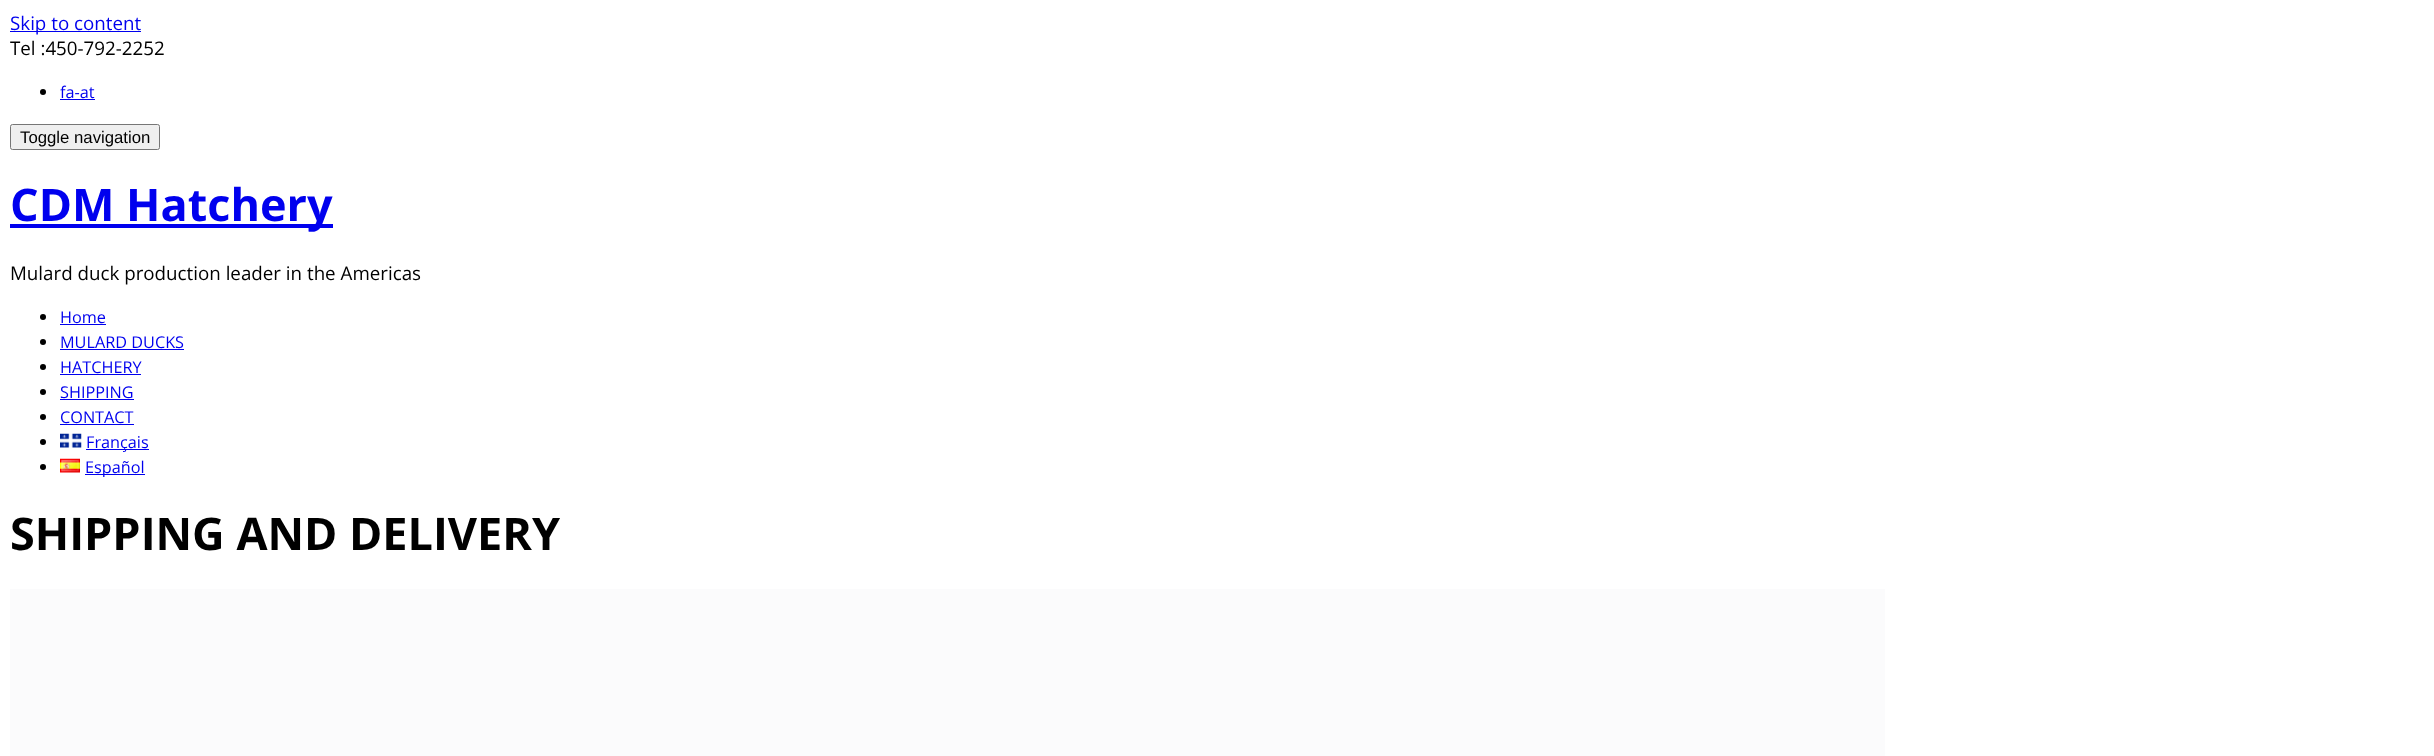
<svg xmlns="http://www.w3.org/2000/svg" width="2434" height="756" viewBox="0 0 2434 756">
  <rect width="100%" height="100%" fill="#ffffff"/>
  <rect x="10" y="31" width="131" height="1" fill="#0000ee"/>
  <text x="10" y="30" font-family="Open Sans" font-size="18.75" fill="#0000ee">Skip to content</text>
  <text x="10" y="55" font-family="Open Sans" font-size="18.75" fill="#000000">Tel :450-792-2252</text>
  <circle cx="43" cy="92" r="3" fill="#000000"/>
  <text x="60" y="98" font-family="Open Sans" font-size="16.25" fill="#0000ee">fa-at</text>
  <rect x="60" y="99" width="35" height="1" fill="#0000ee"/>
  <rect x="10.5" y="124.5" width="149" height="25" rx="2" fill="#efefef" stroke="#767676"/>
  <text x="20" y="143" font-family="Liberation Sans" font-size="16.75" fill="#000000">Toggle navigation</text>
  <rect x="10" y="224" width="323" height="4" fill="#0000ee"/>
  <text x="10" y="221" font-family="Open Sans" font-size="45" font-weight="bold" fill="#0000ee">CDM Hatchery</text>
  <text x="10" y="280" font-family="Open Sans" font-size="18.75" fill="#000000">Mulard duck production leader in the Americas</text>
  <circle cx="43" cy="317" r="3" fill="#000000"/>
  <text x="60" y="323" font-family="Open Sans" font-size="16.25" fill="#0000ee">Home</text>
  <rect x="60" y="324" width="46" height="1" fill="#0000ee"/>
  <circle cx="43" cy="342" r="3" fill="#000000"/>
  <text x="60" y="348" font-family="Open Sans" font-size="16.25" fill="#0000ee">MULARD DUCKS</text>
  <rect x="60" y="349" width="124" height="1" fill="#0000ee"/>
  <circle cx="43" cy="367" r="3" fill="#000000"/>
  <text x="60" y="373" font-family="Open Sans" font-size="16.25" fill="#0000ee">HATCHERY</text>
  <rect x="60" y="374" width="81" height="1" fill="#0000ee"/>
  <circle cx="43" cy="392" r="3" fill="#000000"/>
  <text x="60" y="398" font-family="Open Sans" font-size="16.25" fill="#0000ee">SHIPPING</text>
  <rect x="60" y="399" width="74" height="1" fill="#0000ee"/>
  <circle cx="43" cy="417" r="3" fill="#000000"/>
  <text x="60" y="423" font-family="Open Sans" font-size="16.25" fill="#0000ee">CONTACT</text>
  <rect x="60" y="424" width="74" height="1" fill="#0000ee"/>
  <circle cx="43" cy="442" r="3" fill="#000000"/>
  <image x="60" y="433" width="22" height="15" href="img1.png"/>
  <rect x="86" y="449" width="63" height="1" fill="#0000ee"/>
  <text x="86" y="448" font-family="Open Sans" font-size="16.25" fill="#0000ee">Français</text>
  <circle cx="43" cy="467" r="3" fill="#000000"/>
  <image x="60" y="458" width="20" height="15" href="img2.png"/>
  <rect x="85" y="474" width="60" height="1" fill="#0000ee"/>
  <text x="85" y="473" font-family="Open Sans" font-size="16.25" fill="#0000ee">Español</text>
  <text x="10" y="550" font-family="Open Sans" font-size="45" font-weight="bold" fill="#000000">SHIPPING AND DELIVERY</text>
  <rect x="10" y="589" width="1875" height="167" fill="#fbfbfc"/>
</svg>
